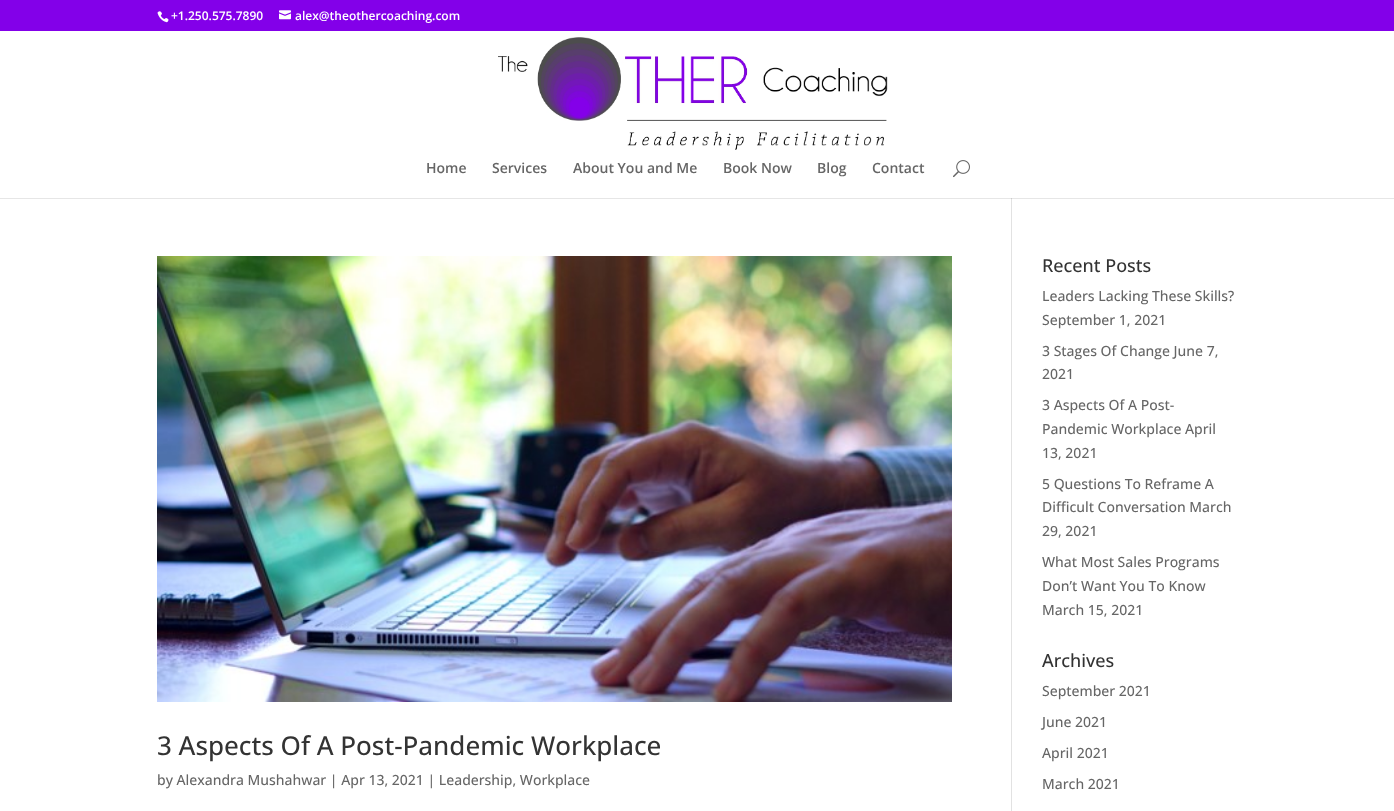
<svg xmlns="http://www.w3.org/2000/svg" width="1394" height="811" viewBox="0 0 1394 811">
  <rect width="100%" height="100%" fill="#8300e9"/>
  <image x="157" y="11" width="12" height="12" href="img1.png"/>
  <text x="171" y="20" font-family="Open Sans" font-size="12" font-weight="600" fill="#ffffff">+1.250.575.7890</text>
  <image x="279" y="10" width="12" height="10" href="img2.png"/>
  <text x="295" y="20" font-family="Open Sans" font-size="12" font-weight="600" fill="#ffffff">alex@theothercoaching.com</text>
  <rect x="0" y="31" width="1394" height="167" fill="#ffffff"/>
  <image x="498" y="37" width="390" height="113" href="img3.png"/>
  <text x="426" y="173" font-family="Open Sans" font-size="14" font-weight="600" fill="#666666">Home</text>
  <text x="492" y="173" font-family="Open Sans" font-size="14" font-weight="600" fill="#666666">Services</text>
  <text x="573" y="173" font-family="Open Sans" font-size="14" font-weight="600" fill="#666666">About You and Me</text>
  <text x="723" y="173" font-family="Open Sans" font-size="14" font-weight="600" fill="#666666">Book Now</text>
  <text x="817" y="173" font-family="Open Sans" font-size="14" font-weight="600" fill="#666666">Blog</text>
  <text x="872" y="173" font-family="Open Sans" font-size="14" font-weight="600" fill="#666666">Contact</text>
  <image x="953" y="160" width="17" height="18" href="img4.png"/>
  <rect x="0" y="199" width="1394" height="612" fill="#ffffff"/>
  <rect x="0" y="198" width="1394" height="1" fill="#e6e6e6"/>
  <rect x="1011" y="198" width="1" height="613" fill="#e2e2e2"/>
  <rect x="1011" y="198" width="1" height="1" fill="#cbcbcb"/>
  <image x="157" y="256" width="795" height="446" href="img5.png"/>
  <text x="157" y="755" font-family="Open Sans" font-size="26" font-weight="500" fill="#333333">3 Aspects Of A Post-Pandemic Workplace</text>
  <text x="157" y="785" font-family="Open Sans" font-size="14" font-weight="500" fill="#666666">by Alexandra Mushahwar | Apr 13, 2021 | Leadership, Workplace</text>
  <text x="1042" y="272" font-family="Open Sans" font-size="18" font-weight="500" fill="#333333">Recent Posts</text>
  <text x="1042" y="301" font-family="Open Sans" font-size="14" font-weight="500" fill="#666666">Leaders Lacking These Skills?</text>
  <text x="1042" y="325" font-family="Open Sans" font-size="14" font-weight="500" fill="#666666">September 1, 2021</text>
  <text x="1042" y="356" font-family="Open Sans" font-size="14" font-weight="500" fill="#666666">3 Stages Of Change June 7,</text>
  <text x="1042" y="379" font-family="Open Sans" font-size="14" font-weight="500" fill="#666666">2021</text>
  <text x="1042" y="410" font-family="Open Sans" font-size="14" font-weight="500" fill="#666666">3 Aspects Of A Post-</text>
  <text x="1042" y="434" font-family="Open Sans" font-size="14" font-weight="500" fill="#666666">Pandemic Workplace April</text>
  <text x="1042" y="458" font-family="Open Sans" font-size="14" font-weight="500" fill="#666666">13, 2021</text>
  <text x="1042" y="489" font-family="Open Sans" font-size="14" font-weight="500" fill="#666666">5 Questions To Reframe A</text>
  <text x="1042" y="512" font-family="Open Sans" font-size="14" font-weight="500" fill="#666666">Difficult Conversation March</text>
  <text x="1042" y="536" font-family="Open Sans" font-size="14" font-weight="500" fill="#666666">29, 2021</text>
  <text x="1042" y="567" font-family="Open Sans" font-size="14" font-weight="500" fill="#666666">What Most Sales Programs</text>
  <text x="1042" y="591" font-family="Open Sans" font-size="14" font-weight="500" fill="#666666">Don’t Want You To Know</text>
  <text x="1042" y="615" font-family="Open Sans" font-size="14" font-weight="500" fill="#666666">March 15, 2021</text>
  <text x="1042" y="667" font-family="Open Sans" font-size="18" font-weight="500" fill="#333333">Archives</text>
  <text x="1042" y="696" font-family="Open Sans" font-size="14" font-weight="500" fill="#666666">September 2021</text>
  <text x="1042" y="727" font-family="Open Sans" font-size="14" font-weight="500" fill="#666666">June 2021</text>
  <text x="1042" y="758" font-family="Open Sans" font-size="14" font-weight="500" fill="#666666">April 2021</text>
  <text x="1042" y="789" font-family="Open Sans" font-size="14" font-weight="500" fill="#666666">March 2021</text>
</svg>
